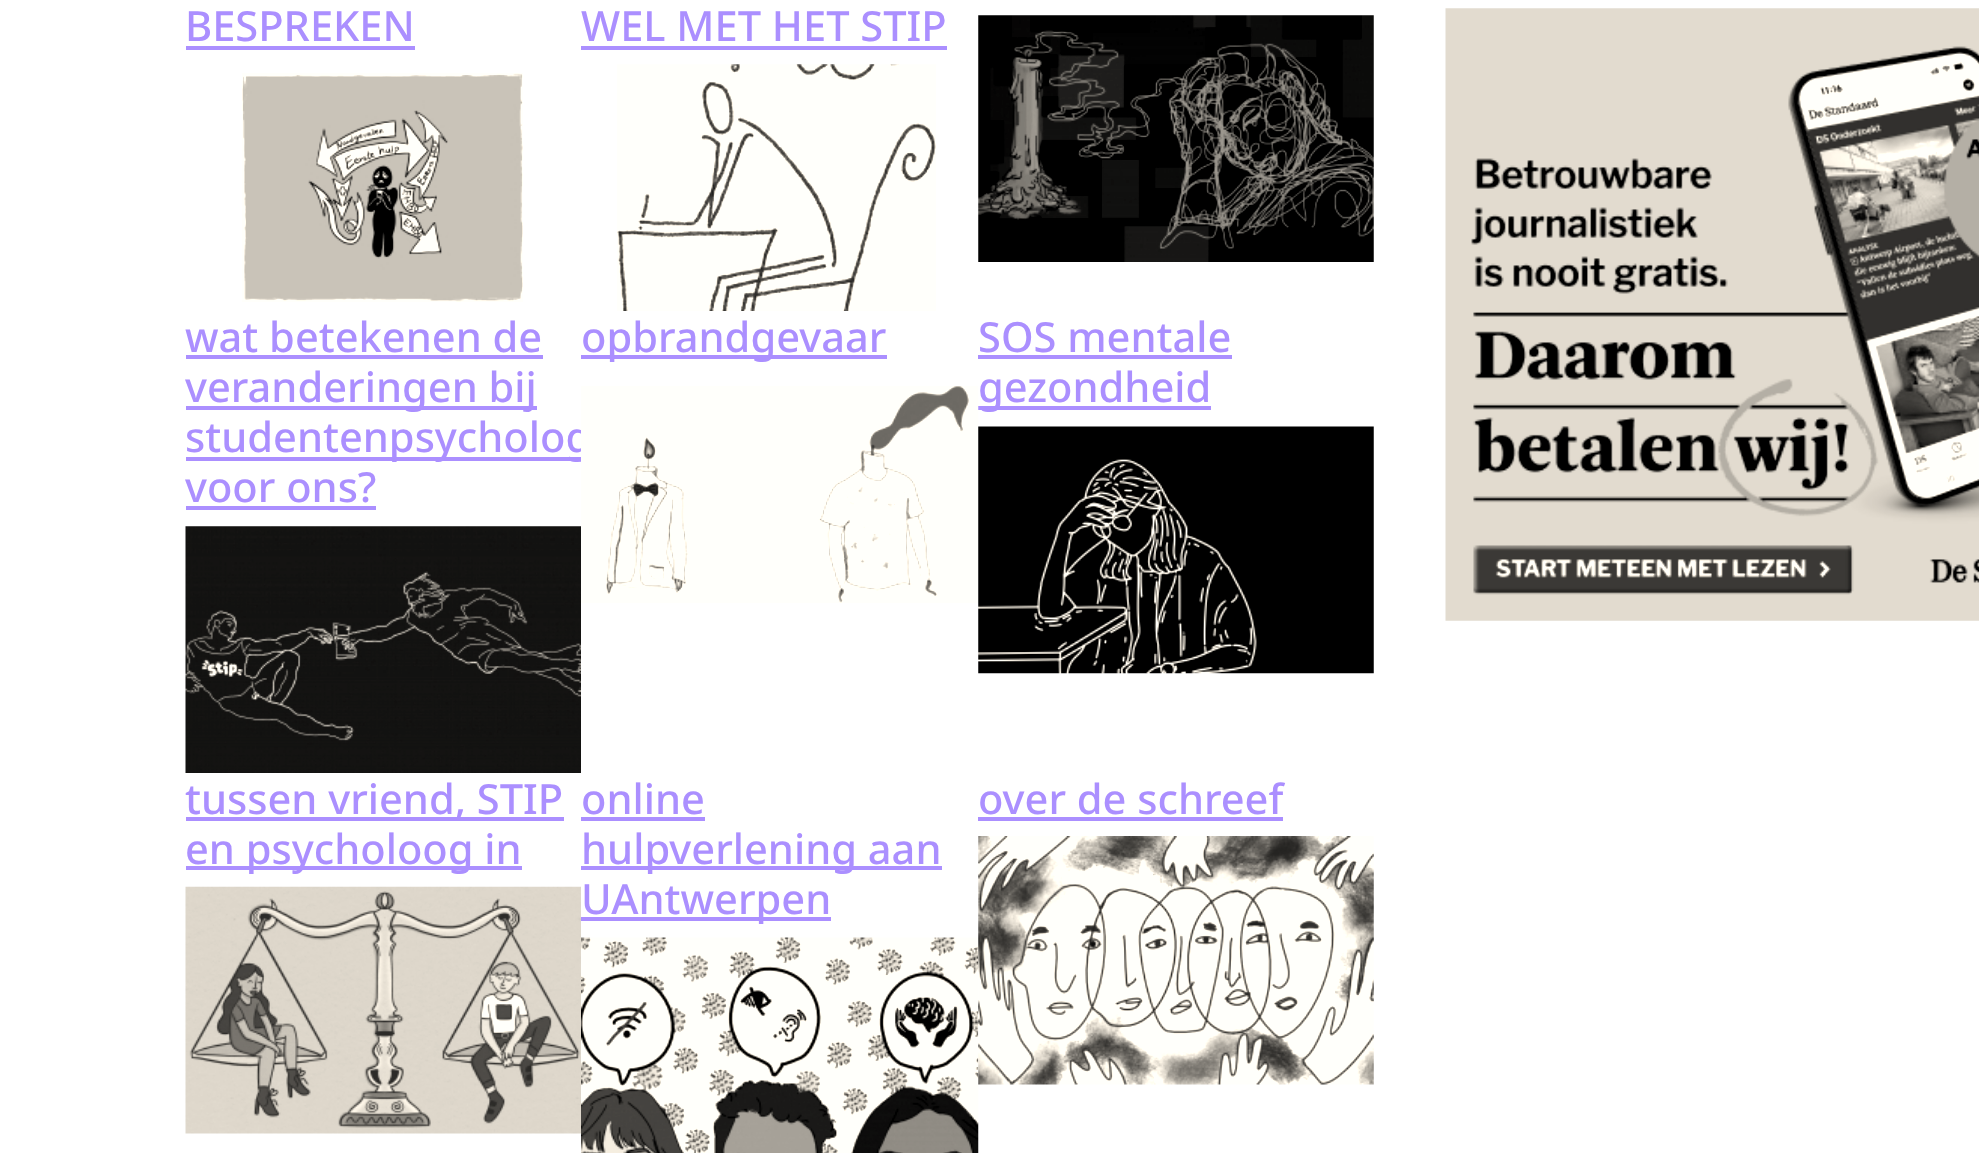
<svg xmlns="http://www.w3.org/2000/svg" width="1979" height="1153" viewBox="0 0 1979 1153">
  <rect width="100%" height="100%" fill="#ffffff"/>
  <text x="185" y="41" font-family="Noto Sans" font-size="41.6" font-weight="500" fill="#ab8fff">BESPREKEN</text>
  <rect x="186" y="46" width="229" height="4" fill="#ab8fff"/>
  <image x="242" y="73" width="281" height="229" href="img1.png"/>
  <text x="581" y="41" font-family="Noto Sans" font-size="41.6" font-weight="500" fill="#ab8fff">WEL MET HET STIP</text>
  <rect x="581" y="46" width="366" height="4" fill="#ab8fff"/>
  <image x="617" y="64" width="319" height="247" href="img2.png"/>
  <image x="978" y="15" width="396" height="247" href="img3.png"/>
  <text x="185" y="352" font-family="Noto Sans" font-size="41.6" font-weight="500" fill="#ab8fff">wat betekenen de</text>
  <rect x="186" y="355" width="357" height="4" fill="#ab8fff"/>
  <rect x="186" y="406" width="351" height="4" fill="#ab8fff"/>
  <text x="185" y="402" font-family="Noto Sans" font-size="41.6" font-weight="500" fill="#ab8fff">veranderingen bij</text>
  <rect x="186" y="457" width="395" height="4" fill="#ab8fff"/>
  <text x="185" y="452" font-family="Noto Sans" font-size="41.6" font-weight="500" fill="#ab8fff">studentenpsycholog</text>
  <text x="185" y="502" font-family="Noto Sans" font-size="41.6" font-weight="500" fill="#ab8fff">voor ons?</text>
  <rect x="186" y="506" width="190" height="4" fill="#ab8fff"/>
  <image x="185" y="526" width="396" height="247" href="img4.png"/>
  <rect x="581" y="355" width="306" height="4" fill="#ab8fff"/>
  <text x="581" y="352" font-family="Noto Sans" font-size="41.6" font-weight="500" fill="#ab8fff">opbrandgevaar</text>
  <rect x="978" y="406" width="233" height="4" fill="#ab8fff"/>
  <image x="581" y="386" width="398" height="217" href="img5.png"/>
  <text x="978" y="352" font-family="Noto Sans" font-size="41.6" font-weight="500" fill="#ab8fff">SOS mentale</text>
  <rect x="978" y="355" width="254" height="4" fill="#ab8fff"/>
  <text x="978" y="402" font-family="Noto Sans" font-size="41.6" font-weight="500" fill="#ab8fff">gezondheid</text>
  <image x="978" y="426" width="396" height="248" href="img6.png"/>
  <rect x="186" y="817" width="378" height="4" fill="#ab8fff"/>
  <text x="185" y="814" font-family="Noto Sans" font-size="41.6" font-weight="500" fill="#ab8fff">tussen vriend, STIP</text>
  <rect x="186" y="866" width="336" height="4" fill="#ab8fff"/>
  <text x="185" y="864" font-family="Noto Sans" font-size="41.6" font-weight="500" fill="#ab8fff">en psycholoog in</text>
  <image x="185" y="886" width="396" height="248" href="img7.png"/>
  <text x="581" y="814" font-family="Noto Sans" font-size="41.6" font-weight="500" fill="#ab8fff">online</text>
  <rect x="581" y="817" width="124" height="4" fill="#ab8fff"/>
  <rect x="581" y="866" width="361" height="4" fill="#ab8fff"/>
  <text x="581" y="864" font-family="Noto Sans" font-size="41.6" font-weight="500" fill="#ab8fff">hulpverlening aan</text>
  <rect x="581" y="917" width="250" height="4" fill="#ab8fff"/>
  <text x="581" y="914" font-family="Noto Sans" font-size="41.6" font-weight="500" fill="#ab8fff">UAntwerpen</text>
  <image x="581" y="937" width="398" height="216" href="img8.png"/>
  <text x="978" y="814" font-family="Noto Sans" font-size="41.6" font-weight="500" fill="#ab8fff">over de schreef</text>
  <rect x="978" y="817" width="305" height="4" fill="#ab8fff"/>
  <image x="978" y="836" width="396" height="249" href="img9.png"/>
  <image x="1445" y="8" width="534" height="613" href="img10.png"/>
</svg>
